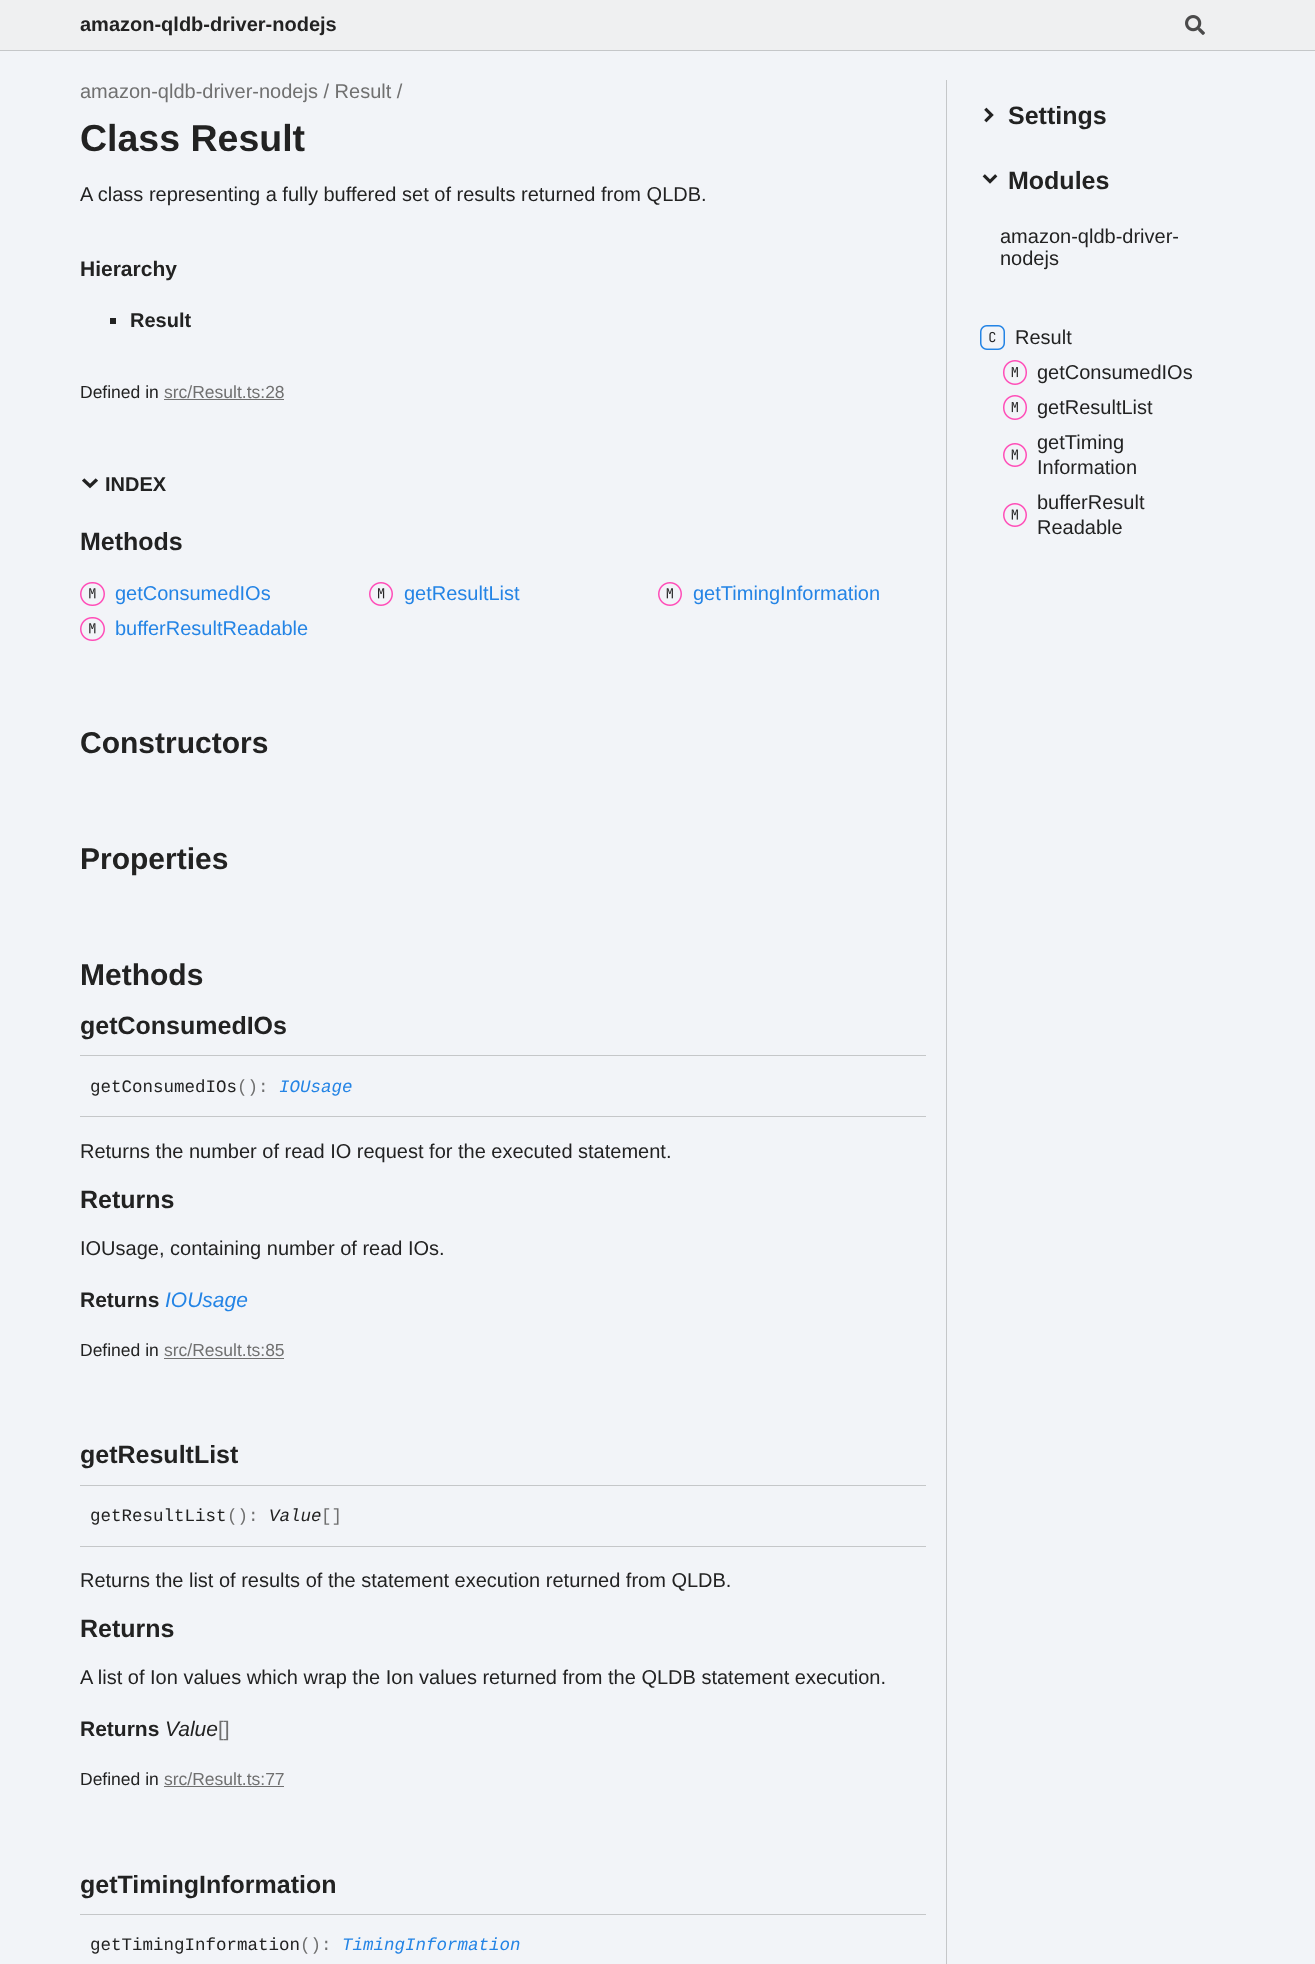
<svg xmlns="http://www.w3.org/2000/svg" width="1315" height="1964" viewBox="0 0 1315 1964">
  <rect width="100%" height="100%" fill="#f2f4f8"/>
  <rect x="0" y="0" width="1315" height="50" fill="#eff0f1"/>
  <rect x="0" y="50" width="1315" height="1" fill="#c5c7c9"/>
  <text x="80" y="31" font-family="Liberation Sans" font-size="20" font-weight="bold" fill="#222222">amazon-qldb-driver-nodejs</text>
  <image x="1185" y="15" width="20" height="20" href="img1.png"/>
  <text x="80" y="98" font-family="Liberation Sans" font-size="20" fill="#707070">amazon-qldb-driver-nodejs / Result /</text>
  <text x="80" y="151" font-family="Liberation Sans" font-size="37.5" font-weight="bold" fill="#222222">Class Result</text>
  <text x="80" y="201" font-family="Liberation Sans" font-size="20" fill="#222222">A class representing a fully buffered set of results returned from QLDB.</text>
  <text x="80" y="276" font-family="Liberation Sans" font-size="21" font-weight="bold" fill="#222222">Hierarchy</text>
  <rect x="110" y="318" width="6" height="6" fill="#222222"/>
  <text x="130" y="327" font-family="Liberation Sans" font-size="20" font-weight="bold" fill="#222222">Result</text>
  <text x="80" y="398" font-family="Liberation Sans" font-size="17.5" fill="#222222">Defined in</text>
  <text x="164" y="398" font-family="Liberation Sans" font-size="17.5" fill="#707070">src/Result.ts:28</text>
  <rect x="164" y="399" width="120" height="1" fill="#707070"/>
  <image x="82" y="478" width="16" height="11" href="img2.png"/>
  <text x="105" y="491" font-family="Liberation Sans" font-size="20" font-weight="bold" fill="#222222">INDEX</text>
  <text x="80" y="550" font-family="Liberation Sans" font-size="25" font-weight="bold" fill="#222222">Methods</text>
  <image x="80" y="582" width="25" height="24" href="img3.png"/>
  <text x="115" y="600" font-family="Liberation Sans" font-size="20" fill="#2484e5">getConsumedIOs</text>
  <image x="369" y="582" width="24" height="24" href="img4.png"/>
  <text x="404" y="600" font-family="Liberation Sans" font-size="20" fill="#2484e5">getResultList</text>
  <image x="658" y="582" width="24" height="24" href="img5.png"/>
  <text x="693" y="600" font-family="Liberation Sans" font-size="20" fill="#2484e5">getTimingInformation</text>
  <image x="80" y="617" width="25" height="24" href="img3.png"/>
  <text x="115" y="635" font-family="Liberation Sans" font-size="20" fill="#2484e5">bufferResultReadable</text>
  <text x="80" y="753" font-family="Liberation Sans" font-size="30" font-weight="bold" fill="#222222">Constructors</text>
  <text x="80" y="869" font-family="Liberation Sans" font-size="30" font-weight="bold" fill="#222222">Properties</text>
  <text x="80" y="985" font-family="Liberation Sans" font-size="30" font-weight="bold" fill="#222222">Methods</text>
  <text x="80" y="1034" font-family="Liberation Sans" font-size="25" font-weight="bold" fill="#222222">getConsumedIOs</text>
  <rect x="80" y="1055" width="846" height="1" fill="#c5c7c9"/>
  <rect x="80" y="1116" width="846" height="1" fill="#c5c7c9"/>
  <text x="90" y="1092" font-family="Liberation Mono" font-size="17.5" fill="#222222">getConsumedIOs</text>
  <text x="237" y="1092" font-family="Liberation Mono" font-size="17.5" fill="#707070">():</text>
  <text x="279" y="1092" font-family="Liberation Mono" font-size="17.5" font-style="italic" fill="#2484e5">IOUsage</text>
  <text x="80" y="1158" font-family="Liberation Sans" font-size="20" fill="#222222">Returns the number of read IO request for the executed statement.</text>
  <text x="80" y="1208" font-family="Liberation Sans" font-size="25" font-weight="bold" fill="#222222">Returns</text>
  <text x="80" y="1255" font-family="Liberation Sans" font-size="20" fill="#222222">IOUsage, containing number of read IOs.</text>
  <text x="80" y="1307" font-family="Liberation Sans" font-size="21" font-weight="bold" fill="#222222">Returns</text>
  <text x="165" y="1307" font-family="Liberation Sans" font-size="21" font-style="italic" fill="#2484e5">IOUsage</text>
  <text x="80" y="1356" font-family="Liberation Sans" font-size="17.5" fill="#222222">Defined in</text>
  <text x="164" y="1356" font-family="Liberation Sans" font-size="17.5" fill="#707070">src/Result.ts:85</text>
  <rect x="164" y="1358" width="120" height="1" fill="#707070"/>
  <text x="80" y="1463" font-family="Liberation Sans" font-size="25" font-weight="bold" fill="#222222">getResultList</text>
  <rect x="80" y="1485" width="846" height="1" fill="#c5c7c9"/>
  <rect x="80" y="1546" width="846" height="1" fill="#c5c7c9"/>
  <text x="90" y="1521" font-family="Liberation Mono" font-size="17.5" fill="#222222">getResultList</text>
  <text x="227" y="1521" font-family="Liberation Mono" font-size="17.5" fill="#707070">():</text>
  <text x="269" y="1521" font-family="Liberation Mono" font-size="17.5" font-style="italic" fill="#222222">Value</text>
  <text x="321" y="1521" font-family="Liberation Mono" font-size="17.5" fill="#707070">[]</text>
  <text x="80" y="1587" font-family="Liberation Sans" font-size="20" fill="#222222">Returns the list of results of the statement execution returned from QLDB.</text>
  <text x="80" y="1637" font-family="Liberation Sans" font-size="25" font-weight="bold" fill="#222222">Returns</text>
  <text x="80" y="1684" font-family="Liberation Sans" font-size="20" fill="#222222">A list of Ion values which wrap the Ion values returned from the QLDB statement execution.</text>
  <text x="80" y="1736" font-family="Liberation Sans" font-size="21" font-weight="bold" fill="#222222">Returns</text>
  <text x="165" y="1736" font-family="Liberation Sans" font-size="21" font-style="italic" fill="#222222">Value</text>
  <text x="218" y="1736" font-family="Liberation Sans" font-size="21" fill="#707070">[]</text>
  <text x="80" y="1785" font-family="Liberation Sans" font-size="17.5" fill="#222222">Defined in</text>
  <text x="164" y="1785" font-family="Liberation Sans" font-size="17.5" fill="#707070">src/Result.ts:77</text>
  <rect x="164" y="1786" width="120" height="1" fill="#707070"/>
  <text x="80" y="1893" font-family="Liberation Sans" font-size="25" font-weight="bold" fill="#222222">getTimingInformation</text>
  <rect x="80" y="1914" width="846" height="1" fill="#c5c7c9"/>
  <text x="90" y="1950" font-family="Liberation Mono" font-size="17.5" fill="#222222">getTimingInformation</text>
  <text x="300" y="1950" font-family="Liberation Mono" font-size="17.5" fill="#707070">():</text>
  <text x="342" y="1950" font-family="Liberation Mono" font-size="17.5" font-style="italic" fill="#2484e5">TimingInformation</text>
  <rect x="946" y="80" width="1" height="1884" fill="#c5c7c9"/>
  <image x="984" y="107" width="10" height="16" href="img6.png"/>
  <text x="1008" y="124" font-family="Liberation Sans" font-size="25" font-weight="bold" fill="#222222">Settings</text>
  <image x="982" y="174" width="16" height="10" href="img7.png"/>
  <text x="1008" y="189" font-family="Liberation Sans" font-size="25" font-weight="bold" fill="#222222">Modules</text>
  <text x="1000" y="243" font-family="Liberation Sans" font-size="20" fill="#222222">amazon-qldb-driver-</text>
  <text x="1000" y="265" font-family="Liberation Sans" font-size="20" fill="#222222">nodejs</text>
  <image x="980" y="325" width="25" height="25" href="img8.png"/>
  <text x="1015" y="344" font-family="Liberation Sans" font-size="20" fill="#222222">Result</text>
  <image x="1003" y="360" width="24" height="25" href="img9.png"/>
  <text x="1037" y="379" font-family="Liberation Sans" font-size="20" fill="#222222">getConsumedIOs</text>
  <image x="1003" y="395" width="24" height="25" href="img9.png"/>
  <text x="1037" y="414" font-family="Liberation Sans" font-size="20" fill="#222222">getResultList</text>
  <image x="1003" y="443" width="24" height="24" href="img10.png"/>
  <text x="1037" y="449" font-family="Liberation Sans" font-size="20" fill="#222222">getTiming</text>
  <text x="1037" y="474" font-family="Liberation Sans" font-size="20" fill="#222222">Information</text>
  <image x="1003" y="503" width="24" height="24" href="img10.png"/>
  <text x="1037" y="509" font-family="Liberation Sans" font-size="20" fill="#222222">bufferResult</text>
  <text x="1037" y="534" font-family="Liberation Sans" font-size="20" fill="#222222">Readable</text>
</svg>
